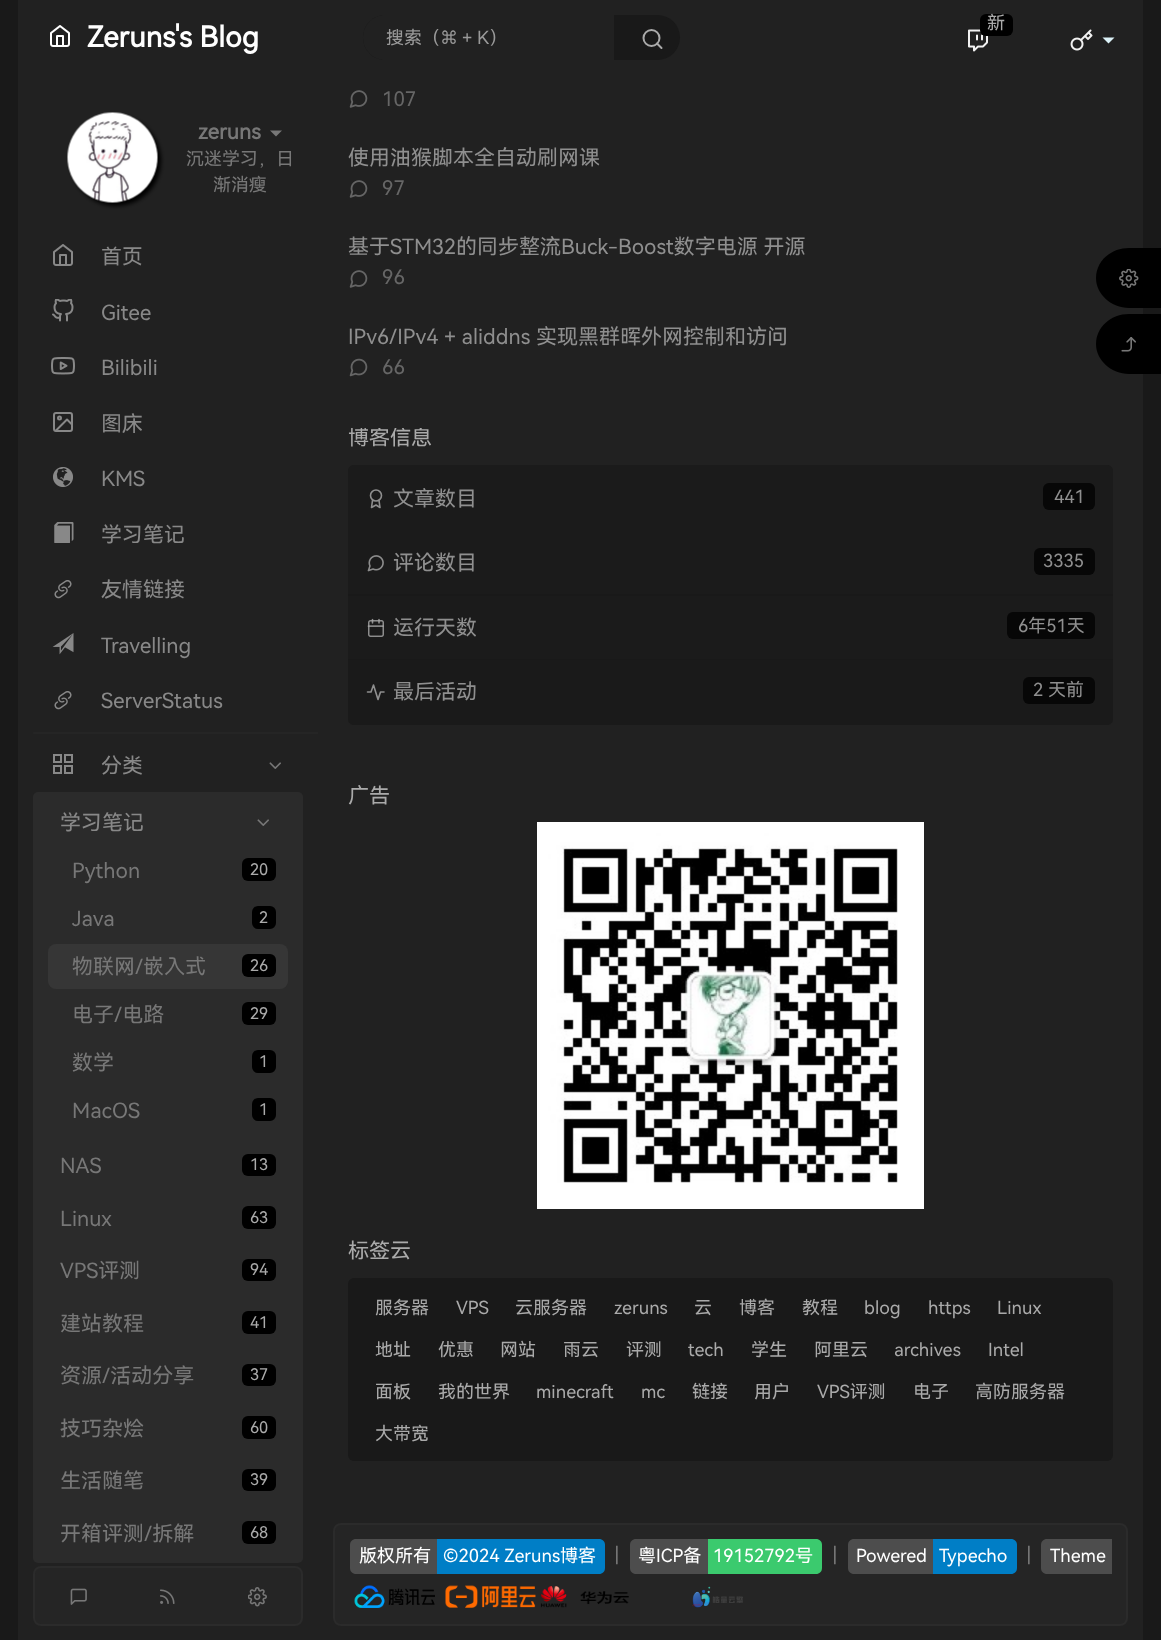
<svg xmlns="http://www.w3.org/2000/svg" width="1161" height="1640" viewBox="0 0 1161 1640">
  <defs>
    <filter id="blur1" x="-50%" y="-200%" width="200%" height="500%"><feGaussianBlur stdDeviation="2"/></filter>
    <clipPath id="clip1"><rect x="318" y="428" width="825" height="327"/></clipPath>
  </defs>
  <rect width="100%" height="100%" fill="#191919"/>
  <rect x="18" y="0" width="1125" height="75" fill="#212121"/>
  <image x="50" y="25" width="20" height="22" href="img1.png"/>
  <text x="87" y="47" font-family="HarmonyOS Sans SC" font-size="28.5" font-weight="bold" fill="#ffffff">Zeruns's Blog</text>
  <image x="968" y="29" width="20" height="23" href="img2.png"/>
  <rect x="980" y="14" width="33" height="22" rx="6" fill="#000000"/>
  <text x="987" y="29" font-family="HarmonyOS Sans SC" font-size="18" fill="#aaaaaa">新</text>
  <image x="1070" y="29" width="23" height="22" href="img3.png"/>
  <path d="M1102.5 37.5H1114.5L1108.5 43.5Z" fill="#dcf2f8"/>
  <rect x="363" y="15" width="317" height="45" rx="22.5" fill="#191919"/>
  <path d="M385.5 15H614V60H385.5C373 60 363 50 363 37.5C363 25 373 15 385.5 15Z" fill="#212121"/>
  <text x="386" y="44" font-family="HarmonyOS Sans SC" font-size="18" fill="#999999">搜索（</text>
  <text x="440" y="44" font-family="DejaVu Sans" font-size="18" fill="#999999">⌘</text>
  <text x="462" y="44" font-family="HarmonyOS Sans SC" font-size="18" fill="#999999">+ K）</text>
  <circle cx="651.5" cy="38" r="8" fill="none" stroke="#aaaaaa" stroke-width="2"/>
  <path d="M661.5 48L657 43.5" fill="none" stroke="#aaaaaa" stroke-width="2" stroke-linecap="round" stroke-linejoin="round"/>
  <rect x="18" y="75" width="1125" height="1565" fill="#212121"/>
  <rect x="71" y="116" width="90" height="90" rx="45" fill="#000000" filter="url(#blur1)"/>
  <image x="67" y="112" width="91" height="91" href="img4.png"/>
  <text x="198" y="139" font-family="HarmonyOS Sans SC" font-size="21" font-weight="bold" fill="#777777">zeruns</text>
  <path d="M270 130.5H282L276 136.5Z" fill="#777777"/>
  <text x="186" y="165" font-family="HarmonyOS Sans SC" font-size="18" fill="#777777">沉迷学习，日</text>
  <text x="213" y="191" font-family="HarmonyOS Sans SC" font-size="18" fill="#777777">渐消瘦</text>
  <image x="53" y="244" width="20" height="22" href="img5.png"/>
  <text x="101" y="264" font-family="HarmonyOS Sans SC" font-size="21" fill="#888888">首页</text>
  <image x="52" y="299" width="22" height="23" href="img6.png"/>
  <text x="101" y="320" font-family="HarmonyOS Sans SC" font-size="21" fill="#888888">Gitee</text>
  <image x="51" y="357" width="24" height="18" href="img7.png"/>
  <text x="101" y="375" font-family="HarmonyOS Sans SC" font-size="21" fill="#888888">Bilibili</text>
  <rect x="54" y="413" width="18" height="18" rx="2" fill="none" stroke="#888888" stroke-width="2"/>
  <circle cx="59.5" cy="418" r="1.5" fill="none" stroke="#888888" stroke-width="2"/>
  <path d="M72 424.5L67 419.5L56 430.5" fill="none" stroke="#888888" stroke-width="2" stroke-linecap="round" stroke-linejoin="round"/>
  <text x="101" y="431" font-family="HarmonyOS Sans SC" font-size="21" fill="#888888">图床</text>
  <image x="53" y="467" width="20" height="20" href="img8.png"/>
  <text x="101" y="486" font-family="HarmonyOS Sans SC" font-size="21" fill="#888888">KMS</text>
  <image x="54" y="522" width="20" height="21" href="img9.png"/>
  <text x="101" y="542" font-family="HarmonyOS Sans SC" font-size="21" fill="#888888">学习笔记</text>
  <image x="54" y="580" width="18" height="19" href="img10.png"/>
  <text x="101" y="597" font-family="HarmonyOS Sans SC" font-size="21" fill="#888888">友情链接</text>
  <image x="52" y="633" width="22" height="22" href="img11.png"/>
  <text x="101" y="653" font-family="HarmonyOS Sans SC" font-size="21" fill="#888888">Travelling</text>
  <image x="54" y="691" width="18" height="19" href="img10.png"/>
  <text x="101" y="708" font-family="HarmonyOS Sans SC" font-size="21" fill="#888888">ServerStatus</text>
  <path d="M34 732H318V734H34C33.5 734 33 733.5 33 733C33 732.5 33.5 732 34 732Z" fill="#252525"/>
  <rect x="54" y="755" width="7" height="7" fill="none" stroke="#888888" stroke-width="2"/>
  <rect x="65" y="755" width="7" height="7" fill="none" stroke="#888888" stroke-width="2"/>
  <rect x="54" y="766" width="7" height="7" fill="none" stroke="#888888" stroke-width="2"/>
  <rect x="65" y="766" width="7" height="7" fill="none" stroke="#888888" stroke-width="2"/>
  <text x="101" y="773" font-family="HarmonyOS Sans SC" font-size="21" fill="#888888">分类</text>
  <image x="269" y="762" width="12" height="7" href="img12.png"/>
  <rect x="33" y="792" width="270" height="771" rx="5" fill="#2b2b2b"/>
  <text x="60" y="830" font-family="HarmonyOS Sans SC" font-size="21" fill="#888888">学习笔记</text>
  <image x="257" y="819" width="12" height="7" href="img13.png"/>
  <text x="72" y="878" font-family="HarmonyOS Sans SC" font-size="21" fill="#777777">Python</text>
  <rect x="242" y="858" width="34" height="23" rx="6" fill="#000000"/>
  <text x="250" y="875" font-family="HarmonyOS Sans SC" font-size="16" fill="#aaaaaa">20</text>
  <text x="72" y="926" font-family="HarmonyOS Sans SC" font-size="21" fill="#777777">Java</text>
  <rect x="252" y="906" width="24" height="23" rx="6" fill="#000000"/>
  <text x="259" y="923" font-family="HarmonyOS Sans SC" font-size="16" fill="#aaaaaa">2</text>
  <rect x="48" y="944" width="240" height="45" rx="8" fill="#363636"/>
  <text x="72" y="974" font-family="HarmonyOS Sans SC" font-size="21" fill="#777777">物联网/嵌入式</text>
  <rect x="242" y="954" width="34" height="23" rx="6" fill="#000000"/>
  <text x="250" y="971" font-family="HarmonyOS Sans SC" font-size="16" fill="#aaaaaa">26</text>
  <text x="72" y="1022" font-family="HarmonyOS Sans SC" font-size="21" fill="#777777">电子/电路</text>
  <rect x="242" y="1002" width="34" height="23" rx="6" fill="#000000"/>
  <text x="250" y="1019" font-family="HarmonyOS Sans SC" font-size="16" fill="#aaaaaa">29</text>
  <text x="72" y="1070" font-family="HarmonyOS Sans SC" font-size="21" fill="#777777">数学</text>
  <rect x="252" y="1050" width="24" height="23" rx="6" fill="#000000"/>
  <text x="259" y="1067" font-family="HarmonyOS Sans SC" font-size="16" fill="#aaaaaa">1</text>
  <text x="72" y="1118" font-family="HarmonyOS Sans SC" font-size="21" fill="#777777">MacOS</text>
  <rect x="252" y="1098" width="24" height="23" rx="6" fill="#000000"/>
  <text x="259" y="1115" font-family="HarmonyOS Sans SC" font-size="16" fill="#aaaaaa">1</text>
  <text x="60" y="1173" font-family="HarmonyOS Sans SC" font-size="21" fill="#777777">NAS</text>
  <rect x="242" y="1154" width="34" height="22" rx="6" fill="#000000"/>
  <text x="250" y="1170" font-family="HarmonyOS Sans SC" font-size="16" fill="#aaaaaa">13</text>
  <text x="60" y="1226" font-family="HarmonyOS Sans SC" font-size="21" fill="#777777">Linux</text>
  <rect x="242" y="1206" width="34" height="23" rx="6" fill="#000000"/>
  <text x="250" y="1223" font-family="HarmonyOS Sans SC" font-size="16" fill="#aaaaaa">63</text>
  <text x="60" y="1278" font-family="HarmonyOS Sans SC" font-size="21" fill="#777777">VPS评测</text>
  <rect x="242" y="1259" width="34" height="22" rx="6" fill="#000000"/>
  <text x="250" y="1275" font-family="HarmonyOS Sans SC" font-size="16" fill="#aaaaaa">94</text>
  <text x="60" y="1331" font-family="HarmonyOS Sans SC" font-size="21" fill="#777777">建站教程</text>
  <rect x="242" y="1311" width="34" height="23" rx="6" fill="#000000"/>
  <text x="250" y="1328" font-family="HarmonyOS Sans SC" font-size="16" fill="#aaaaaa">41</text>
  <text x="60" y="1383" font-family="HarmonyOS Sans SC" font-size="21" fill="#777777">资源/活动分享</text>
  <rect x="242" y="1364" width="34" height="22" rx="6" fill="#000000"/>
  <text x="250" y="1380" font-family="HarmonyOS Sans SC" font-size="16" fill="#aaaaaa">37</text>
  <text x="60" y="1436" font-family="HarmonyOS Sans SC" font-size="21" fill="#777777">技巧杂烩</text>
  <rect x="242" y="1416" width="34" height="23" rx="6" fill="#000000"/>
  <text x="250" y="1433" font-family="HarmonyOS Sans SC" font-size="16" fill="#aaaaaa">60</text>
  <text x="60" y="1488" font-family="HarmonyOS Sans SC" font-size="21" fill="#777777">生活随笔</text>
  <rect x="242" y="1469" width="34" height="22" rx="6" fill="#000000"/>
  <text x="250" y="1485" font-family="HarmonyOS Sans SC" font-size="16" fill="#aaaaaa">39</text>
  <text x="60" y="1541" font-family="HarmonyOS Sans SC" font-size="21" fill="#777777">开箱评测/拆解</text>
  <rect x="242" y="1521" width="34" height="23" rx="6" fill="#000000"/>
  <text x="250" y="1538" font-family="HarmonyOS Sans SC" font-size="16" fill="#aaaaaa">68</text>
  <rect x="34" y="1567" width="268" height="58" rx="7" fill="#252525" stroke="#2b2b2b" stroke-width="2"/>
  <image x="70" y="1588" width="17" height="17" href="img14.png"/>
  <image x="160" y="1589" width="15" height="15" href="img15.png"/>
  <image x="248" y="1587" width="19" height="20" href="img16.png"/>
  <rect x="348" y="596" width="765" height="64" fill="#1b1b1b"/>
  <rect x="348" y="531" width="765" height="63" fill="#1b1b1b"/>
  <rect x="348" y="594" width="765" height="2" fill="#191919"/>
  <image x="349" y="90" width="19" height="18" href="img17.png"/>
  <text x="382" y="106" font-family="HarmonyOS Sans SC" font-size="20" fill="#666666">107</text>
  <text x="348" y="165" font-family="HarmonyOS Sans SC" font-size="21" fill="#8f8f8f">使用油猴脚本全自动刷网课</text>
  <image x="349" y="180" width="19" height="18" href="img17.png"/>
  <text x="382" y="195" font-family="HarmonyOS Sans SC" font-size="20" fill="#666666">97</text>
  <text x="348" y="254" font-family="HarmonyOS Sans SC" font-size="21" fill="#8f8f8f">基于STM32的同步整流Buck-Boost数字电源 开源</text>
  <image x="349" y="270" width="19" height="18" href="img17.png"/>
  <text x="382" y="284" font-family="HarmonyOS Sans SC" font-size="20" fill="#666666">96</text>
  <text x="348" y="344" font-family="HarmonyOS Sans SC" font-size="21" fill="#8f8f8f">IPv6/IPv4 + aliddns 实现黑群晖外网控制和访问</text>
  <image x="349" y="358" width="19" height="19" href="img18.png"/>
  <text x="382" y="374" font-family="HarmonyOS Sans SC" font-size="20" fill="#666666">66</text>
  <g clip-path="url(#clip1)">
    <text x="348" y="445" font-family="HarmonyOS Sans SC" font-size="21" fill="#aaaaaa">博客信息</text>
  </g>
  <path d="M354 465H1107C1110.5 465 1113 467.5 1113 471V531H348V471C348 467.5 350.5 465 354 465Z" fill="#1b1b1b"/>
  <circle cx="376" cy="495.5" r="5.5" fill="none" stroke="#8f8f8f" stroke-width="1.6"/>
  <path d="M372.5 500.5L371.5 507.5L376 505L380 507.5L379 500.5" fill="none" stroke="#8f8f8f" stroke-width="1.6" stroke-linecap="round" stroke-linejoin="round"/>
  <text x="393" y="506" font-family="HarmonyOS Sans SC" font-size="21" fill="#8f8f8f">文章数目</text>
  <rect x="1043" y="483" width="52" height="27" rx="6" fill="#070707"/>
  <text x="1054" y="503" font-family="HarmonyOS Sans SC" font-size="18" fill="#8f8f8f">441</text>
  <image x="367" y="555" width="17" height="17" href="img19.png"/>
  <text x="393" y="570" font-family="HarmonyOS Sans SC" font-size="21" fill="#8f8f8f">评论数目</text>
  <rect x="1034" y="548" width="61" height="27" rx="6" fill="#070707"/>
  <text x="1043" y="567" font-family="HarmonyOS Sans SC" font-size="18" fill="#8f8f8f">3335</text>
  <image x="367" y="618" width="17" height="19" href="img20.png"/>
  <text x="393" y="635" font-family="HarmonyOS Sans SC" font-size="21" fill="#8f8f8f">运行天数</text>
  <rect x="1007" y="612" width="88" height="27" rx="6" fill="#070707"/>
  <text x="1018" y="632" font-family="HarmonyOS Sans SC" font-size="18" fill="#8f8f8f">6年51天</text>
  <path d="M348 659H1113V719C1113 722.5 1110.5 725 1107 725H354C350.5 725 348 722.5 348 719Z" fill="#191919" fill-opacity="0.8"/>
  <path d="M384 692H380.5L378 699.5L373.5 685L371 692H367.5" fill="none" stroke="#8f8f8f" stroke-width="1.6" stroke-linecap="round" stroke-linejoin="round"/>
  <text x="393" y="699" font-family="HarmonyOS Sans SC" font-size="21" fill="#8f8f8f">最后活动</text>
  <rect x="1023" y="677" width="72" height="27" rx="6" fill="#070707"/>
  <text x="1033" y="696" font-family="HarmonyOS Sans SC" font-size="18" fill="#8f8f8f">2 天前</text>
  <text x="348" y="803" font-family="HarmonyOS Sans SC" font-size="21" fill="#aaaaaa">广告</text>
  <image x="537" y="822" width="387" height="387" href="img21.png"/>
  <text x="348" y="1258" font-family="HarmonyOS Sans SC" font-size="21" fill="#aaaaaa">标签云</text>
  <rect x="348" y="1278" width="765" height="183" rx="6" fill="#191919"/>
  <text x="375" y="1314" font-family="HarmonyOS Sans SC" font-size="18" fill="#aaaaaa">服务器</text>
  <text x="456" y="1314" font-family="HarmonyOS Sans SC" font-size="18" fill="#aaaaaa">VPS</text>
  <text x="515" y="1314" font-family="HarmonyOS Sans SC" font-size="18" fill="#aaaaaa">云服务器</text>
  <text x="614" y="1314" font-family="HarmonyOS Sans SC" font-size="18" fill="#aaaaaa">zeruns</text>
  <text x="694" y="1314" font-family="HarmonyOS Sans SC" font-size="18" fill="#aaaaaa">云</text>
  <text x="739" y="1314" font-family="HarmonyOS Sans SC" font-size="18" fill="#aaaaaa">博客</text>
  <text x="802" y="1314" font-family="HarmonyOS Sans SC" font-size="18" fill="#aaaaaa">教程</text>
  <text x="864" y="1314" font-family="HarmonyOS Sans SC" font-size="18" fill="#aaaaaa">blog</text>
  <text x="928" y="1314" font-family="HarmonyOS Sans SC" font-size="18" fill="#aaaaaa">https</text>
  <text x="997" y="1314" font-family="HarmonyOS Sans SC" font-size="18" fill="#aaaaaa">Linux</text>
  <text x="375" y="1356" font-family="HarmonyOS Sans SC" font-size="18" fill="#aaaaaa">地址</text>
  <text x="438" y="1356" font-family="HarmonyOS Sans SC" font-size="18" fill="#aaaaaa">优惠</text>
  <text x="500" y="1356" font-family="HarmonyOS Sans SC" font-size="18" fill="#aaaaaa">网站</text>
  <text x="563" y="1356" font-family="HarmonyOS Sans SC" font-size="18" fill="#aaaaaa">雨云</text>
  <text x="626" y="1356" font-family="HarmonyOS Sans SC" font-size="18" fill="#aaaaaa">评测</text>
  <text x="688" y="1356" font-family="HarmonyOS Sans SC" font-size="18" fill="#aaaaaa">tech</text>
  <text x="751" y="1356" font-family="HarmonyOS Sans SC" font-size="18" fill="#aaaaaa">学生</text>
  <text x="814" y="1356" font-family="HarmonyOS Sans SC" font-size="18" fill="#aaaaaa">阿里云</text>
  <text x="894" y="1356" font-family="HarmonyOS Sans SC" font-size="18" fill="#aaaaaa">archives</text>
  <text x="988" y="1356" font-family="HarmonyOS Sans SC" font-size="18" fill="#aaaaaa">Intel</text>
  <text x="375" y="1398" font-family="HarmonyOS Sans SC" font-size="18" fill="#aaaaaa">面板</text>
  <text x="438" y="1398" font-family="HarmonyOS Sans SC" font-size="18" fill="#aaaaaa">我的世界</text>
  <text x="536" y="1398" font-family="HarmonyOS Sans SC" font-size="18" fill="#aaaaaa">minecraft</text>
  <text x="641" y="1398" font-family="HarmonyOS Sans SC" font-size="18" fill="#aaaaaa">mc</text>
  <text x="692" y="1398" font-family="HarmonyOS Sans SC" font-size="18" fill="#aaaaaa">链接</text>
  <text x="754" y="1398" font-family="HarmonyOS Sans SC" font-size="18" fill="#aaaaaa">用户</text>
  <text x="817" y="1398" font-family="HarmonyOS Sans SC" font-size="18" fill="#aaaaaa">VPS评测</text>
  <text x="913" y="1398" font-family="HarmonyOS Sans SC" font-size="18" fill="#aaaaaa">电子</text>
  <text x="975" y="1398" font-family="HarmonyOS Sans SC" font-size="18" fill="#aaaaaa">高防服务器</text>
  <text x="375" y="1440" font-family="HarmonyOS Sans SC" font-size="18" fill="#aaaaaa">大带宽</text>
  <path d="M1129 314H1161V374H1129C1111 374 1096 360 1096 344C1096 327 1111 314 1129 314Z" fill="#000000"/>
  <image x="1121" y="337" width="15" height="15" href="img22.png"/>
  <rect x="334" y="1524" width="793" height="101" rx="7" fill="#252525" stroke="#2b2b2b" stroke-width="2"/>
  <path d="M356 1539H437V1574H356C352.5 1574 350 1571.5 350 1568V1545C350 1541.5 352.5 1539 356 1539Z" fill="#4d4d4d"/>
  <text x="359" y="1562" font-family="HarmonyOS Sans SC" font-size="18" fill="#ffffff">版权所有</text>
  <path d="M437 1539H599C602.5 1539 605 1541.5 605 1545V1568C605 1571.5 602.5 1574 599 1574H437Z" fill="#007ec6"/>
  <text x="443" y="1562" font-family="HarmonyOS Sans SC" font-size="18" fill="#ffffff">©2024 Zeruns博客</text>
  <text x="615" y="1562" font-family="HarmonyOS Sans SC" font-size="20" fill="#777777">|</text>
  <path d="M636 1539H708V1574H636C632.5 1574 630 1571.5 630 1568V1545C630 1541.5 632.5 1539 636 1539Z" fill="#4d4d4d"/>
  <text x="638" y="1562" font-family="HarmonyOS Sans SC" font-size="18" fill="#ffffff">粤ICP备</text>
  <path d="M708 1539H816C819.5 1539 822 1541.5 822 1545V1568C822 1571.5 819.5 1574 816 1574H708Z" fill="#3bca6e"/>
  <text x="713" y="1562" font-family="HarmonyOS Sans SC" font-size="18" fill="#ffffff">19152792号</text>
  <text x="833" y="1562" font-family="HarmonyOS Sans SC" font-size="20" fill="#777777">|</text>
  <path d="M854 1539H933V1574H854C850.5 1574 848 1571.5 848 1568V1545C848 1541.5 850.5 1539 854 1539Z" fill="#4d4d4d"/>
  <text x="856" y="1562" font-family="HarmonyOS Sans SC" font-size="18" fill="#ffffff">Powered</text>
  <path d="M933 1539H1011C1014.5 1539 1017 1541.5 1017 1545V1568C1017 1571.5 1014.5 1574 1011 1574H933Z" fill="#007ec6"/>
  <text x="939" y="1562" font-family="HarmonyOS Sans SC" font-size="18" fill="#ffffff">Typecho</text>
  <text x="1027" y="1562" font-family="HarmonyOS Sans SC" font-size="20" fill="#777777">|</text>
  <path d="M1047 1539H1112V1574H1047C1043.5 1574 1041 1571.5 1041 1568V1545C1041 1541.5 1043.5 1539 1047 1539Z" fill="#4d4d4d"/>
  <text x="1050" y="1562" font-family="HarmonyOS Sans SC" font-size="18" fill="#ffffff">Theme</text>
  <image x="354" y="1585" width="81" height="23" href="img23.png"/>
  <image x="445" y="1585" width="91" height="23" href="img24.png"/>
  <image x="540" y="1585" width="89" height="23" href="img25.png"/>
  <image x="692" y="1586" width="51" height="22" href="img26.png"/>
  <path d="M1129 248H1161V308H1129C1111 308 1096 294 1096 278C1096 261 1111 248 1129 248Z" fill="#000000"/>
  <image x="1119" y="269" width="20" height="19" href="img27.png"/>
</svg>
